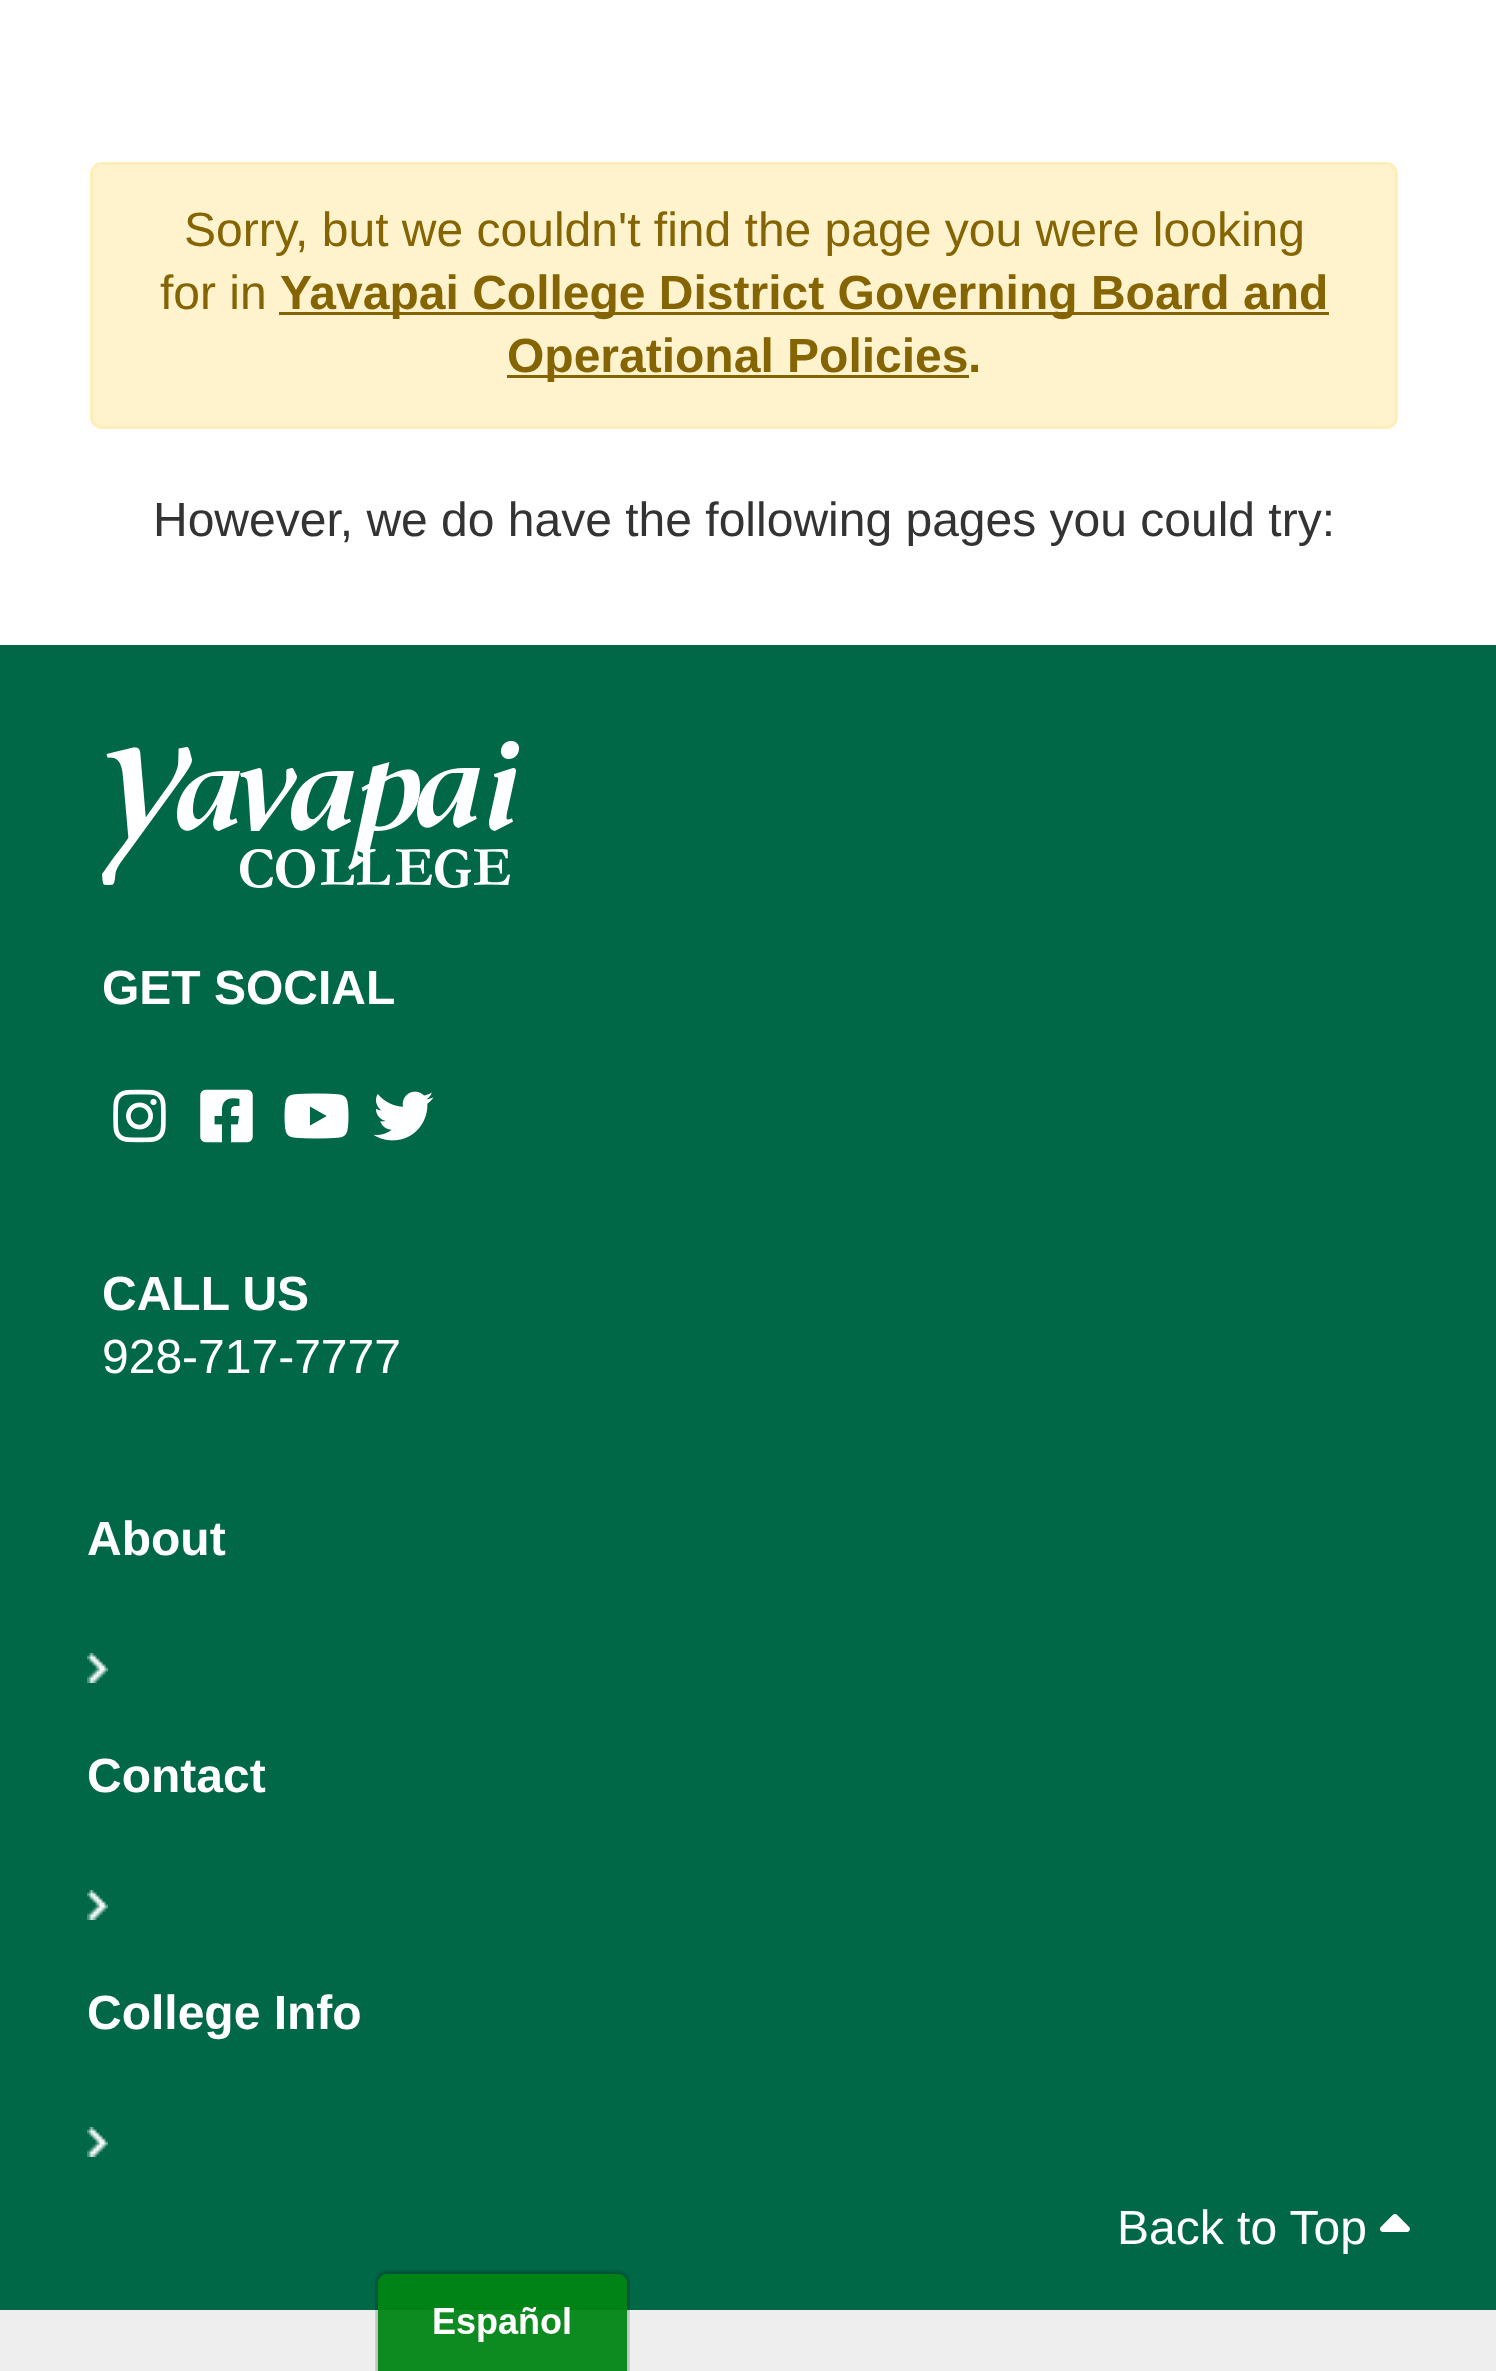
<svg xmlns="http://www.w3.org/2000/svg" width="1496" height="2371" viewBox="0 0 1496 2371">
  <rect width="100%" height="100%" fill="#eeeeee"/>
  <rect x="0" y="0" width="1496" height="645" fill="#ffffff"/>
  <rect x="91.5" y="163.5" width="1305" height="264" rx="10.5" fill="#fff3cd" stroke="#ffeeba" stroke-width="3"/>
  <text x="184" y="246" font-family="Liberation Sans" font-size="48" fill="#856404">Sorry, but we couldn't find the page you were looking</text>
  <text x="160" y="309" font-family="Liberation Sans" font-size="48" fill="#856404">for in</text>
  <rect x="279" y="312" width="1050" height="3" fill="#856404"/>
  <text x="280" y="309" font-family="Liberation Sans" font-size="48" font-weight="bold" fill="#856404">Yavapai College District Governing Board and</text>
  <rect x="507" y="375" width="462" height="3" fill="#856404"/>
  <text x="507" y="372" font-family="Liberation Sans" font-size="48" font-weight="bold" fill="#856404">Operational Policies</text>
  <text x="968" y="372" font-family="Liberation Sans" font-size="48" font-weight="bold" fill="#856404">.</text>
  <text x="153" y="536" font-family="Liberation Sans" font-size="48" fill="#333333">However, we do have the following pages you could try:</text>
  <rect x="0" y="645" width="1496" height="1665" fill="#006747"/>
  <image x="102" y="741" width="417" height="147" href="img1.png"/>
  <text x="102" y="1004" font-family="Liberation Sans" font-size="48" font-weight="bold" fill="#ffffff">GET SOCIAL</text>
  <image x="113" y="1089" width="53" height="54" href="img2.png"/>
  <image x="200" y="1089" width="53" height="54" href="img3.png"/>
  <image x="284" y="1093" width="65" height="46" href="img4.png"/>
  <image x="373" y="1091" width="61" height="50" href="img5.png"/>
  <text x="102" y="1310" font-family="Liberation Sans" font-size="48" font-weight="bold" fill="#ffffff">CALL US</text>
  <text x="102" y="1373" font-family="Liberation Sans" font-size="48" fill="#ffffff">928-717-7777</text>
  <text x="87" y="1555" font-family="Liberation Sans" font-size="48" font-weight="bold" fill="#ffffff">About</text>
  <image x="87" y="1653" width="21" height="30" href="img6.png"/>
  <text x="87" y="1792" font-family="Liberation Sans" font-size="48" font-weight="bold" fill="#ffffff">Contact</text>
  <image x="87" y="1890" width="21" height="30" href="img6.png"/>
  <text x="87" y="2029" font-family="Liberation Sans" font-size="48" font-weight="bold" fill="#ffffff">College Info</text>
  <image x="87" y="2127" width="21" height="30" href="img6.png"/>
  <text x="1117" y="2244" font-family="Liberation Sans" font-size="48" fill="#ffffff">Back to Top</text>
  <image x="1380" y="2214" width="30" height="18" href="img7.png"/>
  <image x="375" y="2270" width="255" height="101" href="img8.png"/>
</svg>
